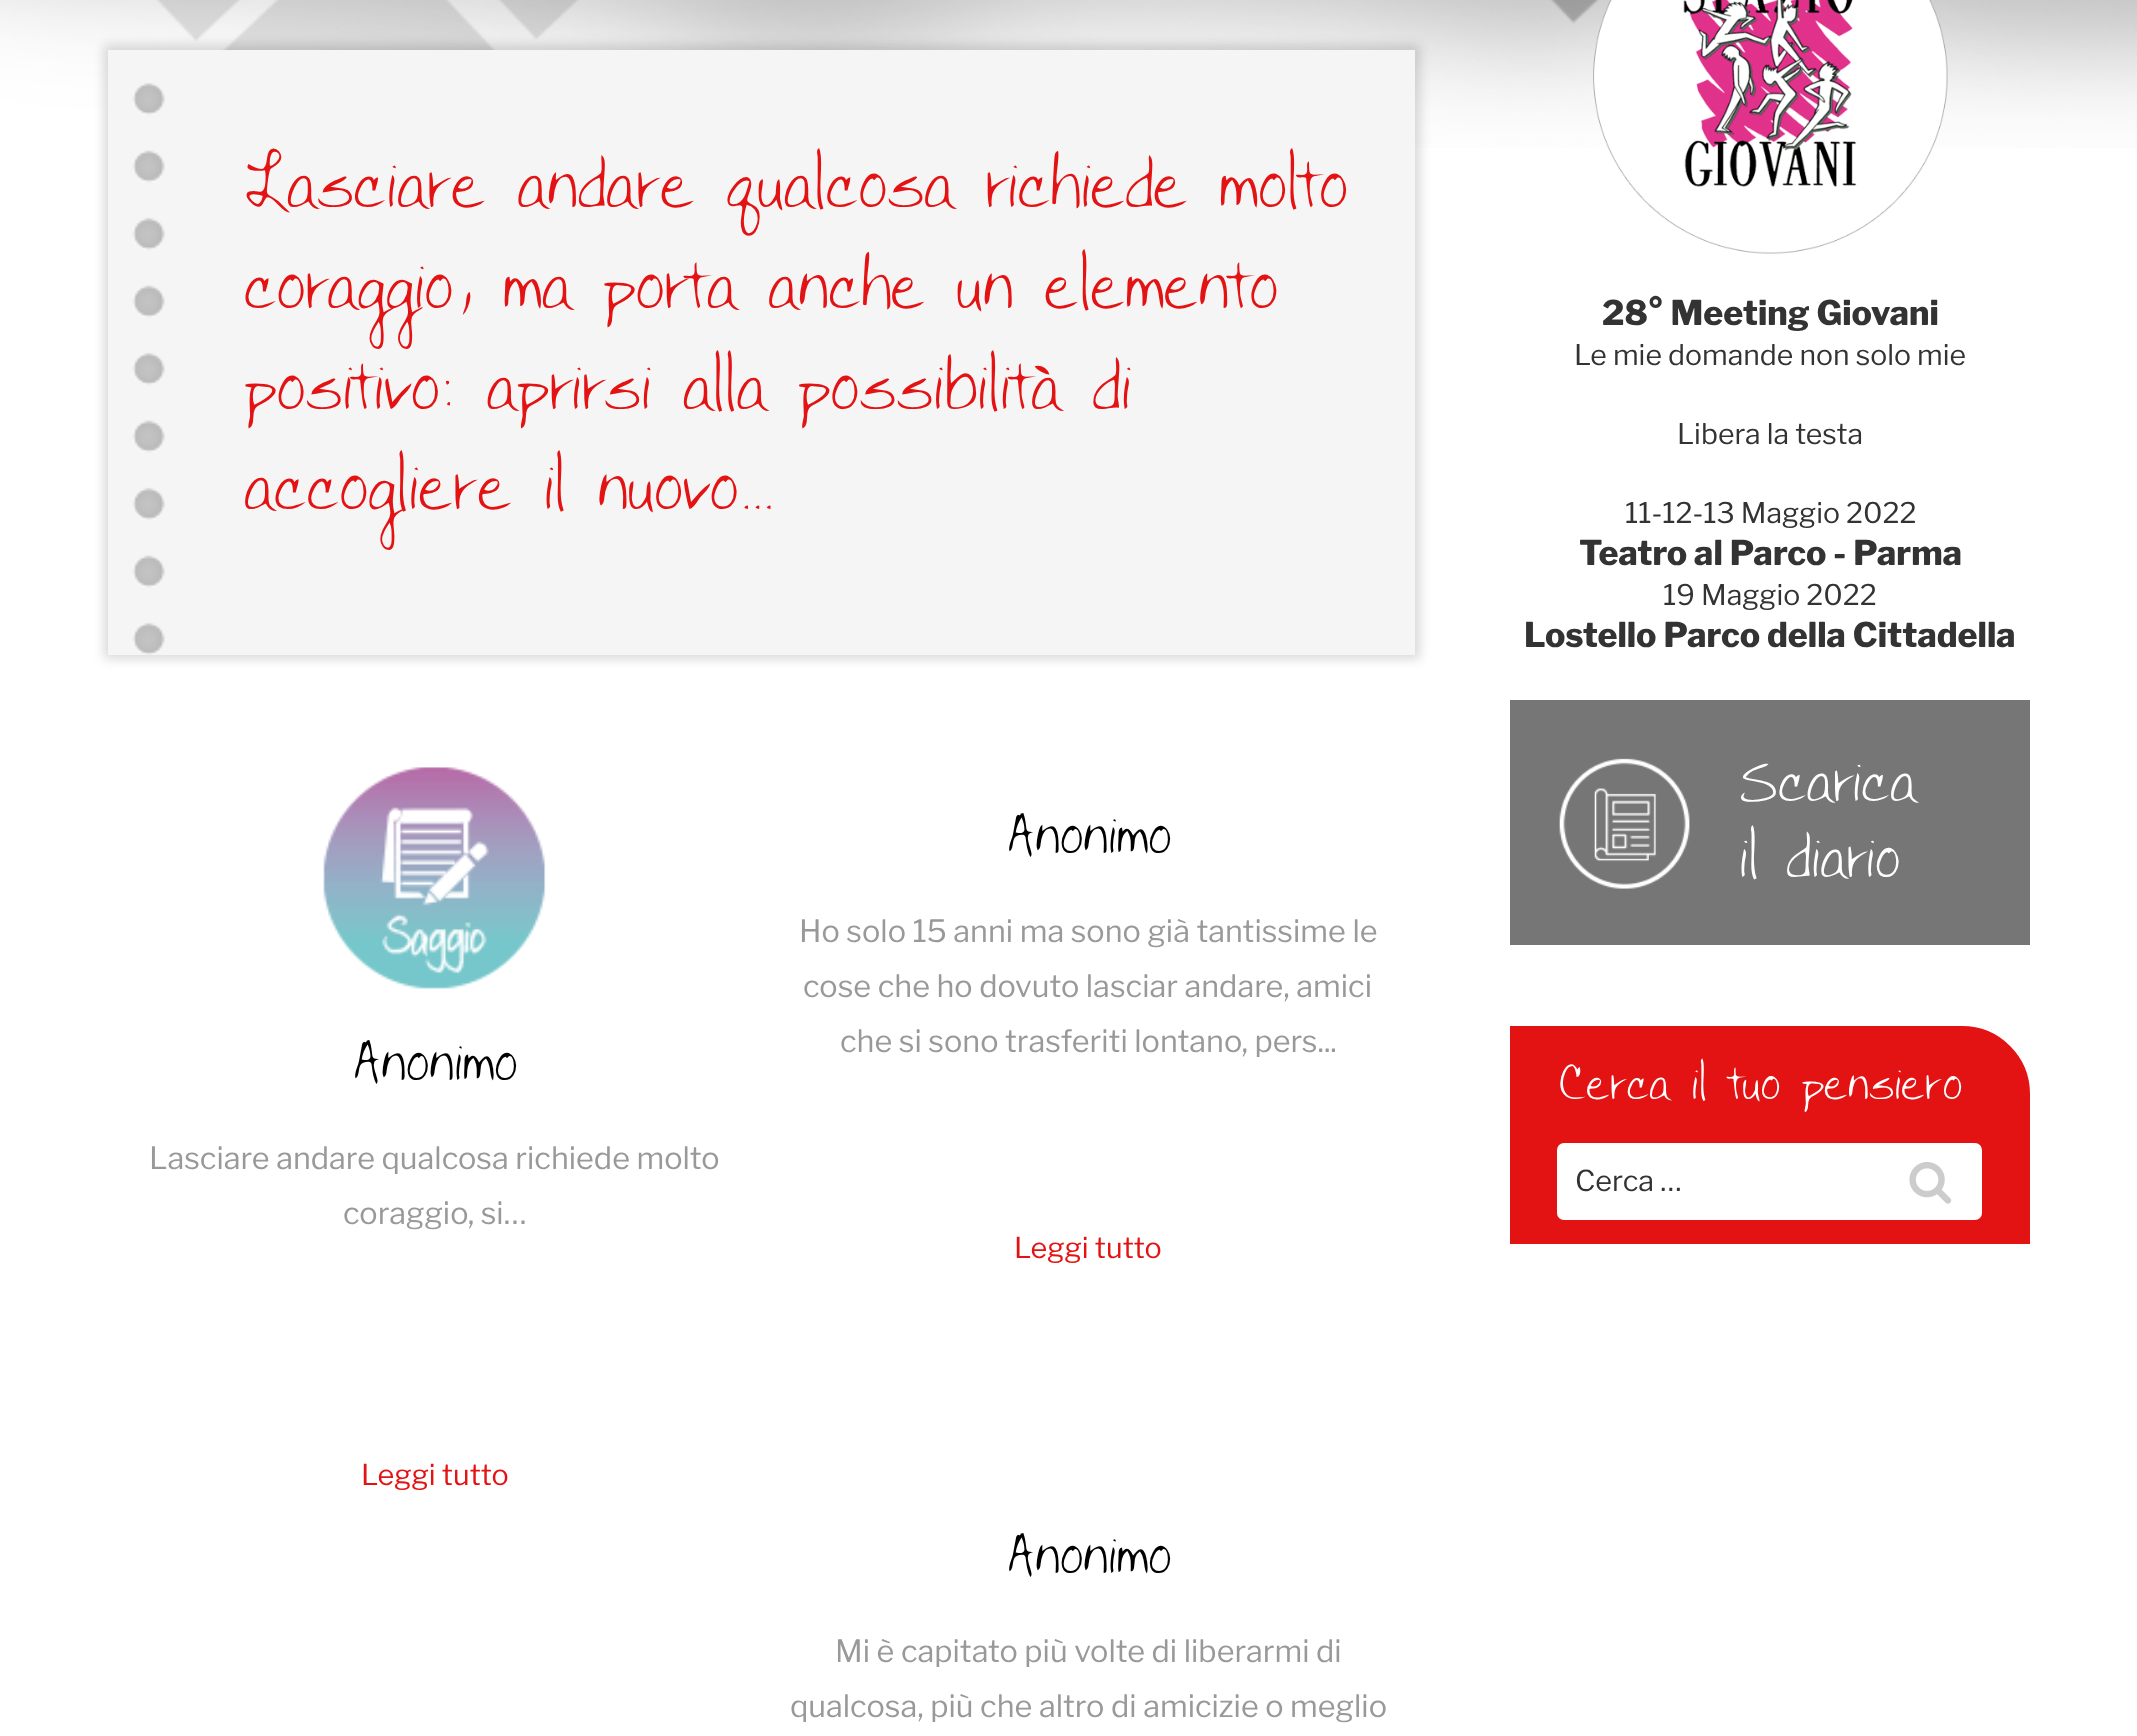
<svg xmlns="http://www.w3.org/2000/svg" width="2137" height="1736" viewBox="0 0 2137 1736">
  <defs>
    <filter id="blur1" x="-50%" y="-200%" width="200%" height="500%"><feGaussianBlur stdDeviation="5.5"/></filter>
  </defs>
  <rect width="100%" height="100%" fill="#ffffff"/>
  <image x="0" y="0" width="2137" height="148" href="img1.png"/>
  <rect x="104" y="45" width="1316" height="614" fill="#000000" fill-opacity="0.15" filter="url(#blur1)"/>
  <rect x="108" y="50" width="1307" height="605" fill="#f5f5f5"/>
  <image x="132" y="83" width="33" height="572" href="img2.png"/>
  <text x="243" y="207" font-family="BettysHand" font-size="72" font-weight="100" fill="#e41313">Lasciare andare qualcosa richiede molto</text>
  <text x="243" y="308" font-family="BettysHand" font-size="72" font-weight="100" fill="#e41313">coraggio, ma porta anche un elemento</text>
  <text x="243" y="409" font-family="BettysHand" font-size="72" font-weight="100" fill="#e41313">positivo: aprirsi alla possibilità di</text>
  <text x="243" y="509" font-family="BettysHand" font-size="72" font-weight="100" fill="#e41313">accogliere il nuovo...</text>
  <image x="323" y="767" width="223" height="222" href="img3.png"/>
  <text x="352" y="1080" font-family="BettysHand" font-size="58.5" font-weight="100" fill="#000000">Anonimo</text>
  <text x="149" y="1169" font-family="Libre Franklin" font-size="30.6" fill="#999999">Lasciare andare qualcosa richiede molto</text>
  <text x="343" y="1224" font-family="Libre Franklin" font-size="30.6" fill="#999999">coraggio, si…</text>
  <text x="361" y="1485" font-family="Libre Franklin" font-size="28.75" fill="#e41313">Leggi tutto</text>
  <text x="1006" y="853" font-family="BettysHand" font-size="58.5" font-weight="100" fill="#000000">Anonimo</text>
  <text x="799" y="942" font-family="Libre Franklin" font-size="30.6" fill="#999999">Ho solo 15 anni ma sono già tantissime le</text>
  <text x="803" y="997" font-family="Libre Franklin" font-size="30.6" fill="#999999">cose che ho dovuto lasciar andare, amici</text>
  <text x="840" y="1052" font-family="Libre Franklin" font-size="30.6" fill="#999999">che si sono trasferiti lontano, pers...</text>
  <text x="1014" y="1258" font-family="Libre Franklin" font-size="28.75" fill="#e41313">Leggi tutto</text>
  <text x="1006" y="1573" font-family="BettysHand" font-size="58.5" font-weight="100" fill="#000000">Anonimo</text>
  <text x="835" y="1662" font-family="Libre Franklin" font-size="30.6" fill="#999999">Mi è capitato più volte di liberarmi di</text>
  <text x="790" y="1717" font-family="Libre Franklin" font-size="30.6" fill="#999999">qualcosa, più che altro di amicizie o meglio</text>
  <image x="1593" y="0" width="355" height="254" href="img4.png"/>
  <text x="1602" y="325" font-family="Libre Franklin" font-size="34" font-weight="800" fill="#333333">28° Meeting Giovani</text>
  <text x="1574" y="365" font-family="Libre Franklin" font-size="28.4" fill="#333333">Le mie domande non solo mie</text>
  <text x="1677" y="444" font-family="Libre Franklin" font-size="28.4" fill="#333333">Libera la testa</text>
  <text x="1625" y="523" font-family="Libre Franklin" font-size="28.4" fill="#333333">11-12-13 Maggio 2022</text>
  <text x="1579" y="565" font-family="Libre Franklin" font-size="34" font-weight="800" fill="#333333">Teatro al Parco - Parma</text>
  <text x="1663" y="605" font-family="Libre Franklin" font-size="28.4" fill="#333333">19 Maggio 2022</text>
  <text x="1524" y="647" font-family="Libre Franklin" font-size="34" font-weight="800" fill="#333333">Lostello Parco della Cittadella</text>
  <rect x="1510" y="700" width="520" height="245" fill="#767676"/>
  <image x="1559" y="758" width="131" height="131" href="img5.png"/>
  <text x="1738" y="801" font-family="BettysHand" font-size="63" font-weight="100" fill="#ffffff">Scarica</text>
  <text x="1738" y="877" font-family="BettysHand" font-size="63" font-weight="100" fill="#ffffff">il diario</text>
  <path d="M1511 1027H1962C1999 1027 2029 1057 2029 1094V1243H1511Z" fill="#e41313" stroke="#e41313" stroke-width="2"/>
  <text x="1558" y="1099" font-family="BettysHand" font-size="49.5" font-weight="100" fill="#ffffff">Cerca il tuo pensiero</text>
  <rect x="1558" y="1144" width="423" height="75" rx="6" fill="#ffffff" stroke="#ffffff" stroke-width="2"/>
  <text x="1575" y="1191" font-family="Libre Franklin" font-size="28.75" fill="#333333">Cerca …</text>
  <image x="1909" y="1162" width="43" height="42" href="img6.png"/>
</svg>
